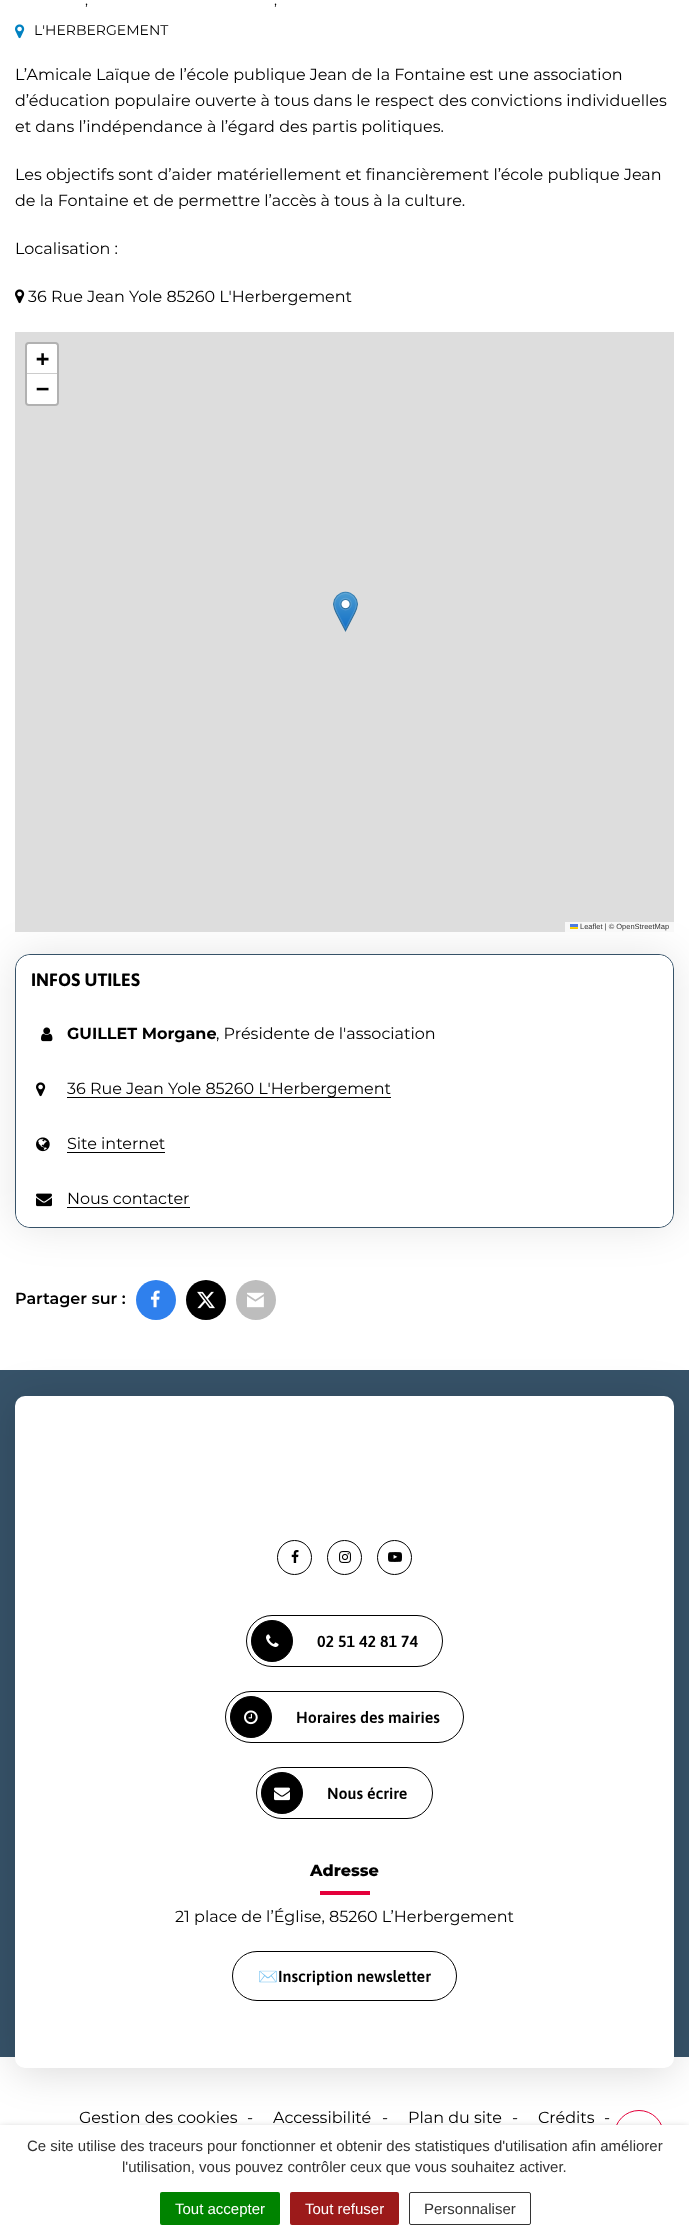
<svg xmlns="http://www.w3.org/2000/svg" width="689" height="2240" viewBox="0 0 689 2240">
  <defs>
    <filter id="blur1" x="-50%" y="-200%" width="200%" height="500%"><feGaussianBlur stdDeviation="20"/></filter>
    <filter id="blur2" x="-50%" y="-200%" width="200%" height="500%"><feGaussianBlur stdDeviation="5"/></filter>
  </defs>
  <rect width="100%" height="100%" fill="#ffffff"/>
  <text x="85" y="5" font-family="Montserrat" font-size="14" fill="#000000">,</text>
  <text x="274" y="5" font-family="Montserrat" font-size="14" fill="#000000">,</text>
  <image x="15" y="24" width="10" height="15" href="img1.png"/>
  <text x="34" y="35" font-family="Montserrat" font-size="14" fill="#000000">L'HERBERGEMENT</text>
  <text x="15" y="80" font-family="Montserrat" font-size="16" fill="#000000">L’Amicale Laïque de l’école publique Jean de la Fontaine est une association</text>
  <text x="15" y="106" font-family="Montserrat" font-size="16" fill="#000000">d’éducation populaire ouverte à tous dans le respect des convictions individuelles</text>
  <text x="15" y="132" font-family="Montserrat" font-size="16" fill="#000000">et dans l’indépendance à l’égard des partis politiques.</text>
  <text x="15" y="180" font-family="Montserrat" font-size="16" fill="#000000">Les objectifs sont d’aider matériellement et financièrement l’école publique Jean</text>
  <text x="15" y="206" font-family="Montserrat" font-size="16" fill="#000000">de la Fontaine et de permettre l’accès à tous à la culture.</text>
  <text x="15" y="254" font-family="Montserrat" font-size="16" fill="#000000">Localisation :</text>
  <image x="15" y="289" width="10" height="15" href="img2.png"/>
  <text x="28" y="302" font-family="Montserrat" font-size="16" fill="#000000">36 Rue Jean Yole 85260 L'Herbergement</text>
  <rect x="15" y="954" width="659" height="274" rx="15" fill="#000000" fill-opacity="0.1" filter="url(#blur1)"/>
  <rect x="15" y="332" width="659" height="600" fill="#dddddd"/>
  <rect x="26" y="343" width="32" height="62" rx="3" fill="none" stroke="#b1b1b1" stroke-width="2"/>
  <path d="M29 344H55C56 344 57 345 57 346V374H27V346C27 345 28 344 29 344Z" fill="#ffffff"/>
  <rect x="27" y="373" width="30" height="1" fill="#cccccc"/>
  <text x="36" y="366" font-family="DejaVu Sans Mono" font-size="22" font-weight="bold" fill="#000000">+</text>
  <path d="M27 374H57V402C57 403 56 404 55 404H29C28 404 27 403 27 402Z" fill="#ffffff"/>
  <text x="36" y="396" font-family="DejaVu Sans Mono" font-size="22" font-weight="bold" fill="#000000">−</text>
  <rect x="565" y="922" width="109" height="10" fill="#f8f8f8"/>
  <image x="570" y="924" width="8" height="5" href="img3.png"/>
  <text x="580" y="929" font-family="Liberation Sans" font-size="7.5" fill="#333333">Leaflet | © OpenStreetMap</text>
  <image x="333" y="591" width="25" height="41" href="img4.png"/>
  <rect x="15.5" y="954.5" width="658" height="273" rx="14.5" fill="#ffffff" stroke="#365268"/>
  <path d="M31 955H658C666.5 955 673 961.5 673 970V1006H16V970C16 961.5 22.5 955 31 955Z" fill="#ffffff"/>
  <text x="31" y="986" font-family="Asap" font-size="18" font-weight="bold" fill="#000000">INFOS UTILES</text>
  <image x="41" y="1027" width="12" height="15" href="img5.png"/>
  <text x="67" y="1039" font-family="Montserrat" font-size="16" font-weight="bold" fill="#000000">GUILLET Morgane</text>
  <text x="216" y="1039" font-family="Montserrat" font-size="16" fill="#000000">, Présidente de l'association</text>
  <image x="36" y="1082" width="10" height="15" href="img2.png"/>
  <rect x="67" y="1097" width="324" height="1" fill="#000000"/>
  <text x="67" y="1094" font-family="Montserrat" font-size="16" fill="#000000">36 Rue Jean Yole 85260 L'Herbergement</text>
  <image x="36" y="1137" width="14" height="15" href="img6.png"/>
  <text x="67" y="1149" font-family="Montserrat" font-size="16" fill="#000000">Site internet</text>
  <rect x="67" y="1152" width="98" height="1" fill="#000000"/>
  <path d="M16 1171H673V1212C673 1220.5 666.5 1227 658 1227H31C22.5 1227 16 1220.5 16 1212Z" fill="#ffffff"/>
  <image x="36" y="1193" width="16" height="14" href="img7.png"/>
  <text x="67" y="1204" font-family="Montserrat" font-size="16" fill="#000000">Nous contacter</text>
  <rect x="67" y="1207" width="123" height="1" fill="#000000"/>
  <text x="15" y="1304" font-family="Montserrat" font-size="16" font-weight="600" fill="#000000">Partager sur :</text>
  <circle cx="156" cy="1300" r="20" fill="#2f80ed"/>
  <image x="150" y="1290" width="10" height="18" href="img8.png"/>
  <circle cx="206" cy="1300" r="20" fill="#000000"/>
  <image x="197" y="1291" width="18" height="18" href="img9.png"/>
  <circle cx="256" cy="1300" r="20" fill="#bdbdbd"/>
  <image x="247" y="1292" width="17" height="16" href="img10.png"/>
  <rect x="0" y="1370" width="689" height="687" fill="#365268"/>
  <rect x="15" y="1400" width="659" height="672" rx="10" fill="#000000" fill-opacity="0.15" filter="url(#blur1)"/>
  <rect x="15" y="1396" width="659" height="672" rx="10" fill="#ffffff"/>
  <circle cx="294.5" cy="1557.5" r="17" fill="none" stroke="#000000"/>
  <image x="291" y="1550" width="8" height="13" href="img11.png"/>
  <circle cx="344.5" cy="1557.5" r="17" fill="none" stroke="#000000"/>
  <image x="339" y="1551" width="12" height="12" href="img12.png"/>
  <circle cx="394.5" cy="1557.5" r="17" fill="none" stroke="#000000"/>
  <image x="388" y="1552" width="14" height="10" href="img13.png"/>
  <rect x="246.5" y="1615.5" width="196" height="51" rx="25.5" fill="none" stroke="#000000"/>
  <circle cx="272" cy="1641" r="20.5" fill="#000000" stroke="#000000"/>
  <image x="266" y="1634" width="13" height="13" href="img14.png"/>
  <text x="317" y="1647" font-family="Asap" font-size="16" font-weight="600" fill="#000000">02 51 42 81 74</text>
  <rect x="225.5" y="1691.5" width="238" height="51" rx="25.5" fill="none" stroke="#000000"/>
  <circle cx="251" cy="1717" r="20.5" fill="#000000" stroke="#000000"/>
  <image x="244" y="1710" width="14" height="15" href="img15.png"/>
  <text x="296" y="1723" font-family="Asap" font-size="16" font-weight="600" fill="#000000">Horaires des mairies</text>
  <rect x="256.5" y="1767.5" width="176" height="51" rx="25.5" fill="none" stroke="#000000"/>
  <circle cx="282" cy="1793" r="20.5" fill="#000000" stroke="#000000"/>
  <image x="274" y="1787" width="16" height="14" href="img16.png"/>
  <text x="327" y="1799" font-family="Asap" font-size="16" font-weight="600" fill="#000000">Nous écrire</text>
  <text x="310" y="1876" font-family="Montserrat" font-size="16" font-weight="800" fill="#000000">Adresse</text>
  <rect x="320" y="1891" width="50" height="4" fill="#e4003b"/>
  <text x="175" y="1922" font-family="Montserrat" font-size="16" fill="#000000">21 place de l’Église, 85260 L’Herbergement</text>
  <rect x="232.5" y="1951.5" width="224" height="49" rx="24.5" fill="none" stroke="#000000"/>
  <text x="258" y="1982" font-family="Noto Color Emoji" font-size="16" font-weight="bold" fill="#000000">✉️</text>
  <text x="278" y="1982" font-family="Asap" font-size="16" font-weight="600" fill="#000000">Inscription newsletter</text>
  <text x="79" y="2123" font-family="Montserrat" font-size="16" fill="#000000">Gestion des cookies</text>
  <text x="247" y="2123" font-family="Montserrat" font-size="16" fill="#000000">-</text>
  <text x="273" y="2123" font-family="Montserrat" font-size="16" fill="#000000">Accessibilité</text>
  <text x="382" y="2123" font-family="Montserrat" font-size="16" fill="#000000">-</text>
  <text x="408" y="2123" font-family="Montserrat" font-size="16" fill="#000000">Plan du site</text>
  <text x="512" y="2123" font-family="Montserrat" font-size="16" fill="#000000">-</text>
  <text x="538" y="2123" font-family="Montserrat" font-size="16" fill="#000000">Crédits</text>
  <text x="604" y="2123" font-family="Montserrat" font-size="16" fill="#000000">-</text>
  <circle cx="639" cy="2135" r="24.5" fill="none" stroke="#e4003b"/>
  <rect x="0" y="2130" width="689" height="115" fill="#000000" fill-opacity="0.5" filter="url(#blur2)"/>
  <rect x="0" y="2125" width="689" height="115" fill="#ffffff"/>
  <text x="27" y="2151" font-family="Liberation Sans" font-size="15" fill="#333333">Ce site utilise des traceurs pour fonctionner et obtenir des statistiques d'utilisation afin améliorer</text>
  <text x="122" y="2172" font-family="Liberation Sans" font-size="15" fill="#333333">l'utilisation, vous pouvez contrôler ceux que vous souhaitez activer.</text>
  <rect x="160" y="2192" width="120" height="33" rx="2" fill="#008300"/>
  <text x="175" y="2214" font-family="Liberation Sans" font-size="15" fill="#ffffff">Tout accepter</text>
  <rect x="290" y="2192" width="109" height="33" rx="2" fill="#9c1a1a"/>
  <text x="305" y="2214" font-family="Liberation Sans" font-size="15" fill="#ffffff">Tout refuser</text>
  <rect x="409.5" y="2192.5" width="121" height="32" rx="1.5" fill="none" stroke="#333333"/>
  <text x="424" y="2214" font-family="Liberation Sans" font-size="15" fill="#333333">Personnaliser</text>
</svg>
